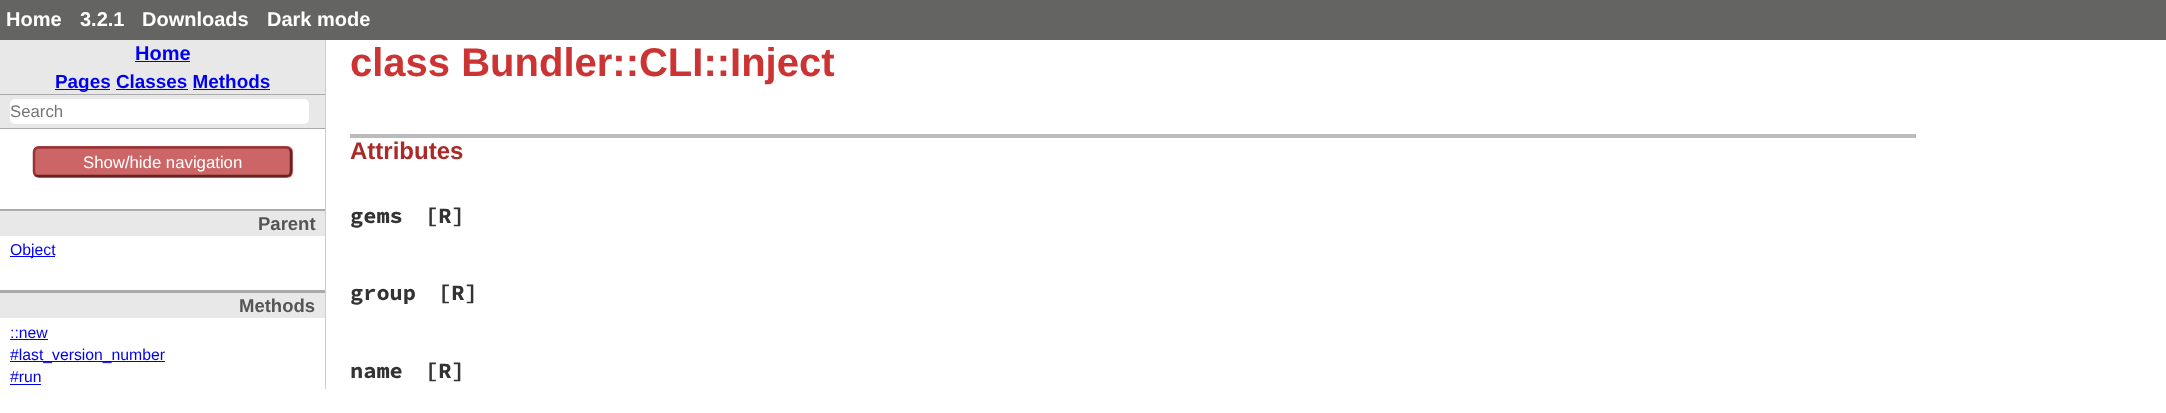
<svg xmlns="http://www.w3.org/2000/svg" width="2166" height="413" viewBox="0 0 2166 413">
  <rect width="100%" height="100%" fill="#ffffff"/>
  <rect x="0" y="0" width="2166" height="40" fill="#646462"/>
  <text x="6" y="26" font-family="Liberation Sans" font-size="20" font-weight="bold" fill="#ffffff">Home</text>
  <text x="80" y="26" font-family="Liberation Sans" font-size="20" font-weight="bold" fill="#ffffff">3.2.1</text>
  <text x="142" y="26" font-family="Liberation Sans" font-size="20" font-weight="bold" fill="#ffffff">Downloads</text>
  <text x="267" y="26" font-family="Liberation Sans" font-size="20" font-weight="bold" fill="#ffffff">Dark mode</text>
  <rect x="325" y="40" width="1" height="349" fill="#cccccc"/>
  <rect x="0" y="40" width="325" height="54" fill="#e8e8e8"/>
  <text x="135" y="60" font-family="Liberation Sans" font-size="20" font-weight="bold" fill="#0000ee">Home</text>
  <rect x="135" y="61" width="55" height="1" fill="#0000ee"/>
  <rect x="55" y="89" width="55" height="1" fill="#0000ee"/>
  <text x="55" y="88" font-family="Liberation Sans" font-size="18.9" font-weight="bold" fill="#0000ee">Pages Classes Methods</text>
  <rect x="116" y="89" width="72" height="1" fill="#0000ee"/>
  <rect x="193" y="89" width="77" height="1" fill="#0000ee"/>
  <rect x="0" y="95" width="325" height="33" fill="#e8e8e8"/>
  <rect x="0" y="94" width="325" height="1" fill="#aaaaaa"/>
  <rect x="0" y="128" width="325" height="1" fill="#aaaaaa"/>
  <rect x="10" y="99" width="299" height="25" rx="5" fill="#ffffff"/>
  <text x="10" y="117" font-family="Liberation Sans" font-size="16.75" fill="#757575">Search</text>
  <rect x="33" y="146" width="260" height="32" rx="6" fill="#cc6666"/>
  <path d="M290 149C290.5 150 291 151 291 152.5V171C291 172.5 290.5 174 290 175C289 175.5 287.5 176 286 176H39C37.5 176 36 175.5 35 175" fill="none" stroke="#662222" stroke-width="2.5"/>
  <path d="M35 175C34.5 174 34 172.5 34 171V152.5C34 151 34.5 150 35 149C36 148 37.5 147.5 39 147.5H286C287.5 147.5 289 148 290 149" fill="none" stroke="#993333" stroke-width="2.5"/>
  <text x="83" y="168" font-family="Liberation Sans" font-size="16.75" fill="#ffffff">Show/hide navigation</text>
  <rect x="0" y="209" width="325" height="2" fill="#aaaaaa"/>
  <rect x="0" y="211" width="325" height="25" fill="#e8e8e8"/>
  <text x="258" y="230" font-family="Liberation Sans" font-size="18.5" font-weight="bold" fill="#555555">Parent</text>
  <rect x="10" y="256" width="45" height="1" fill="#0000ee"/>
  <text x="10" y="255" font-family="Liberation Sans" font-size="15.75" fill="#0000ee">Object</text>
  <rect x="0" y="290" width="325" height="3" fill="#aaaaaa"/>
  <rect x="0" y="293" width="325" height="25" fill="#e8e8e8"/>
  <text x="239" y="312" font-family="Liberation Sans" font-size="18.5" font-weight="bold" fill="#555555">Methods</text>
  <text x="10" y="338" font-family="Liberation Sans" font-size="15.75" fill="#0000ee">::new</text>
  <rect x="10" y="339" width="38" height="1" fill="#0000ee"/>
  <rect x="10" y="361" width="155" height="1" fill="#0000ee"/>
  <text x="10" y="360" font-family="Liberation Sans" font-size="15.75" fill="#0000ee">#last_version_number</text>
  <text x="10" y="382" font-family="Liberation Sans" font-size="15.75" fill="#0000ee">#run</text>
  <rect x="10" y="384" width="31" height="1" fill="#0000ee"/>
  <text x="350" y="76" font-family="Liberation Sans" font-size="40" font-weight="bold" fill="#cc3333">class Bundler::CLI::Inject</text>
  <rect x="350" y="134" width="1566" height="4" fill="#bbbbbb"/>
  <text x="350" y="159" font-family="Liberation Sans" font-size="24" font-weight="bold" fill="#aa2929">Attributes</text>
  <text x="350" y="223" font-family="Source Code Pro" font-size="22" font-weight="bold" fill="#333333">gems</text>
  <text x="425" y="223" font-family="Source Code Pro" font-size="22" font-weight="bold" fill="#333333">[R]</text>
  <text x="350" y="300" font-family="Source Code Pro" font-size="22" font-weight="bold" fill="#333333">group</text>
  <text x="438" y="300" font-family="Source Code Pro" font-size="22" font-weight="bold" fill="#333333">[R]</text>
  <text x="350" y="378" font-family="Source Code Pro" font-size="22" font-weight="bold" fill="#333333">name</text>
  <text x="425" y="378" font-family="Source Code Pro" font-size="22" font-weight="bold" fill="#333333">[R]</text>
</svg>
